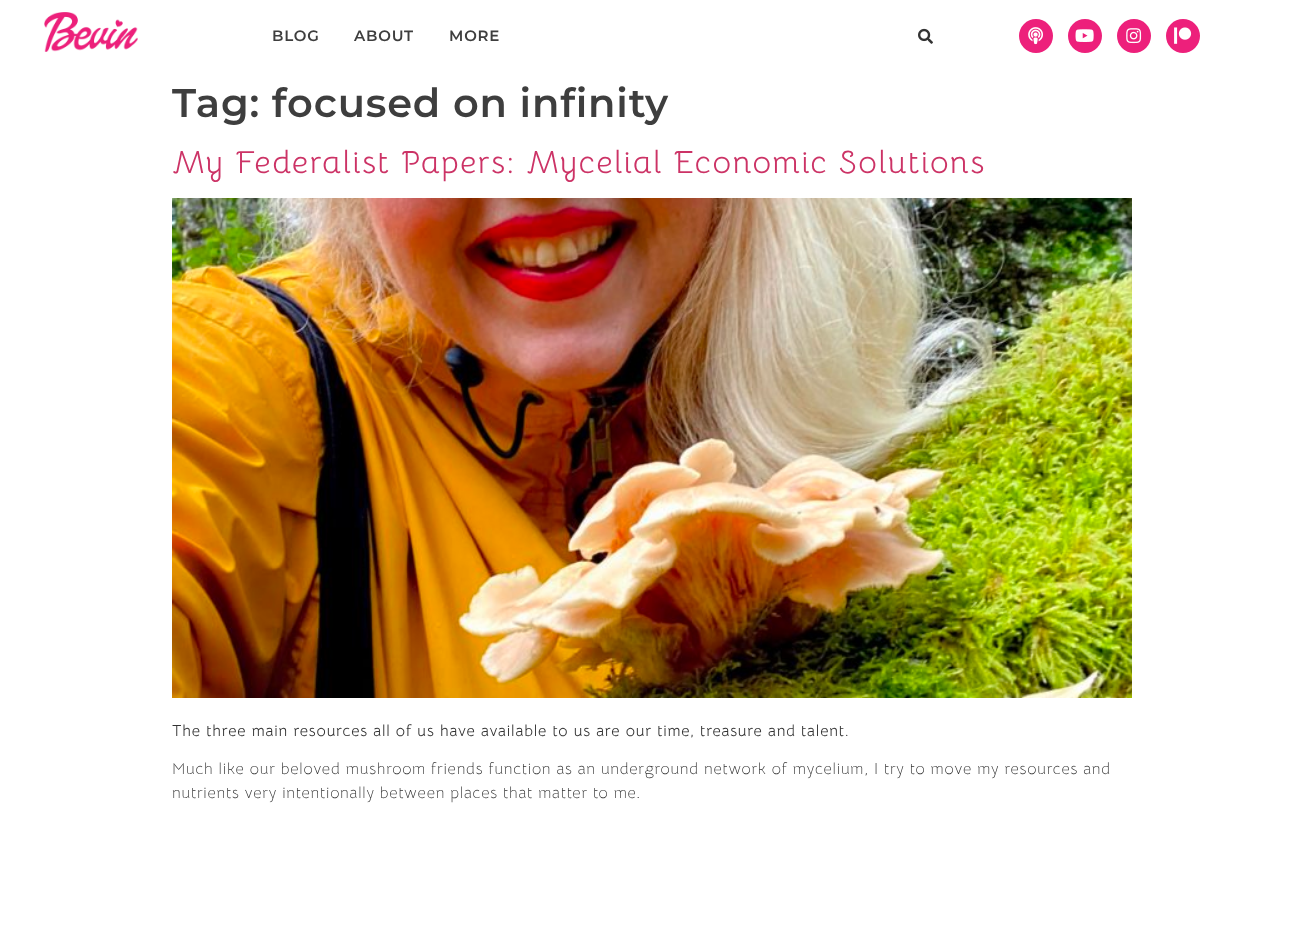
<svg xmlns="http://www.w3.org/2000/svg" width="1303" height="942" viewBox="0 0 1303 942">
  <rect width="100%" height="100%" fill="#ffffff"/>
  <image x="44" y="12" width="94" height="40" href="img1.png"/>
  <text x="272" y="41" font-family="Montserrat" font-size="15" font-weight="600" letter-spacing="0.8" fill="#3e3e3e">BLOG</text>
  <text x="354" y="41" font-family="Montserrat" font-size="15" font-weight="600" letter-spacing="0.8" fill="#3e3e3e">ABOUT</text>
  <text x="449" y="41" font-family="Montserrat" font-size="15" font-weight="600" letter-spacing="0.8" fill="#3e3e3e">MORE</text>
  <image x="918" y="28" width="15" height="16" href="img2.png"/>
  <circle cx="1036" cy="36" r="17" fill="#ed207b"/>
  <image x="1028" y="27" width="15" height="18" href="img3.png"/>
  <circle cx="1085" cy="36" r="17" fill="#ed207b"/>
  <image x="1075" y="29" width="19" height="13" href="img4.png"/>
  <circle cx="1134" cy="36" r="17" fill="#ed207b"/>
  <image x="1126" y="28" width="16" height="16" href="img5.png"/>
  <circle cx="1183" cy="36" r="17" fill="#ed207b"/>
  <image x="1174" y="27" width="18" height="17" href="img6.png"/>
  <text x="172" y="117" font-family="Montserrat" font-size="40" font-weight="600" letter-spacing="0.8" fill="#3e3e3e">Tag: focused on infinity</text>
  <text x="172" y="173" font-family="Bellota" font-size="32" letter-spacing="1.6" fill="#cc3366">My Federalist Papers: Mycelial Economic Solutions</text>
  <image x="172" y="198" width="960" height="500" href="img7.png"/>
  <text x="172" y="736" font-family="Bellota Text" font-size="16" letter-spacing="0.8" fill="#333333">The three main resources all of us have available to us are our time, treasure and talent.</text>
  <text x="172" y="774" font-family="Bellota Text" font-size="16" font-weight="300" letter-spacing="0.8" fill="#333333">Much like our beloved mushroom friends function as an underground network of mycelium, I try to move my resources and</text>
  <text x="172" y="798" font-family="Bellota Text" font-size="16" font-weight="300" letter-spacing="0.8" fill="#333333">nutrients very intentionally between places that matter to me.</text>
</svg>
